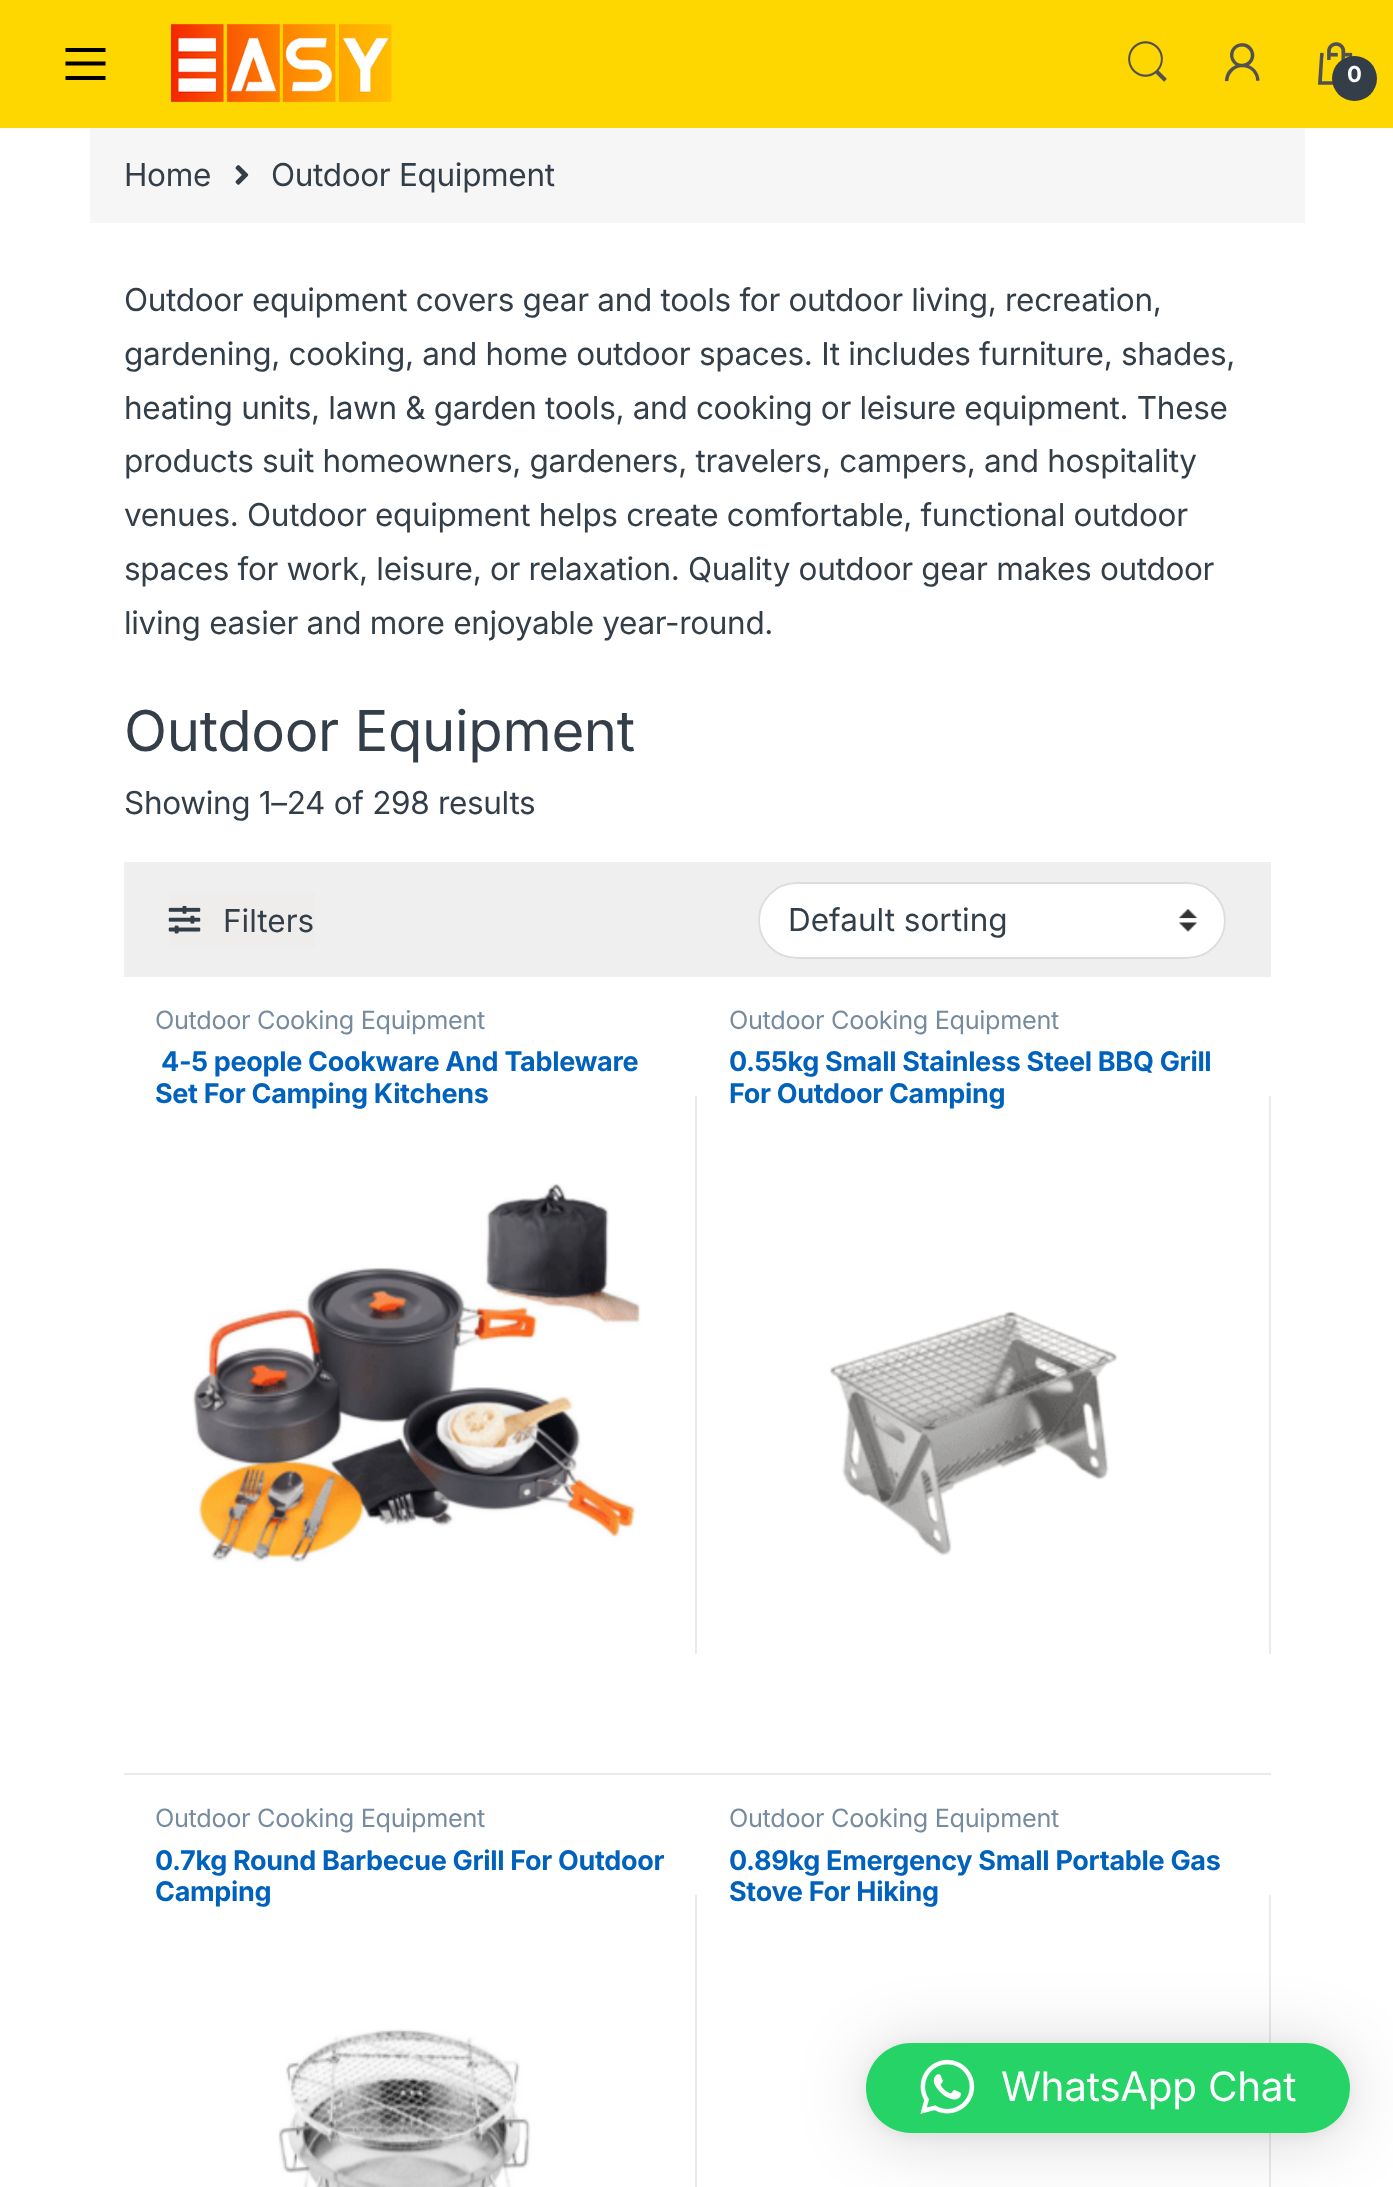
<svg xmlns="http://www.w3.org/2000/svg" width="1393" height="2187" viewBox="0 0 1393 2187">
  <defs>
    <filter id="blur1" x="-50%" y="-200%" width="200%" height="500%"><feGaussianBlur stdDeviation="36"/></filter>
    <filter id="blur2" x="-50%" y="-200%" width="200%" height="500%"><feGaussianBlur stdDeviation="7"/></filter>
  </defs>
  <rect width="100%" height="100%" fill="#ffffff"/>
  <rect x="0" y="0" width="1393" height="128" fill="#fed700"/>
  <path d="M65.5 80V76H105.5V80ZM65.5 61.5H105.5V65.5H65.5ZM65.5 48H105.5V52H65.5Z" fill="#000000"/>
  <image x="171" y="24" width="221" height="78" href="img1.png"/>
  <image x="1128" y="41" width="39" height="41" href="img2.png"/>
  <image x="1224" y="43" width="36" height="39" href="img3.png"/>
  <image x="1317" y="42" width="36" height="43" href="img4.png"/>
  <circle cx="1354.5" cy="78.5" r="22.5" fill="#333e48"/>
  <text x="1347" y="82" font-family="Inter" font-size="22" font-weight="bold" letter-spacing="-0.32" fill="#ffffff">0</text>
  <rect x="90" y="128" width="1215" height="95" fill="#f7f6f6"/>
  <text x="124" y="186" font-family="Inter" font-size="31.5" letter-spacing="-0.32" fill="#333e48">Home</text>
  <image x="235" y="165" width="14" height="20" href="img5.png"/>
  <text x="271" y="186" font-family="Inter" font-size="31.5" letter-spacing="-0.32" fill="#333e48">Outdoor Equipment</text>
  <text x="124" y="311" font-family="Inter" font-size="31.5" letter-spacing="-0.32" fill="#333e48">Outdoor equipment covers gear and tools for outdoor living, recreation,</text>
  <text x="124" y="365" font-family="Inter" font-size="31.5" letter-spacing="-0.32" fill="#333e48">gardening, cooking, and home outdoor spaces. It includes furniture, shades,</text>
  <text x="124" y="419" font-family="Inter" font-size="31.5" letter-spacing="-0.32" fill="#333e48">heating units, lawn &amp; garden tools, and cooking or leisure equipment. These</text>
  <text x="124" y="472" font-family="Inter" font-size="31.5" letter-spacing="-0.32" fill="#333e48">products suit homeowners, gardeners, travelers, campers, and hospitality</text>
  <text x="124" y="526" font-family="Inter" font-size="31.5" letter-spacing="-0.32" fill="#333e48">venues. Outdoor equipment helps create comfortable, functional outdoor</text>
  <text x="124" y="580" font-family="Inter" font-size="31.5" letter-spacing="-0.32" fill="#333e48">spaces for work, leisure, or relaxation. Quality outdoor gear makes outdoor</text>
  <text x="124" y="634" font-family="Inter" font-size="31.5" letter-spacing="-0.32" fill="#333e48">living easier and more enjoyable year-round.</text>
  <text x="124" y="751" font-family="Inter" font-size="56.25" letter-spacing="-0.32" fill="#333e48">Outdoor Equipment</text>
  <text x="124" y="814" font-family="Inter" font-size="31.5" letter-spacing="-0.32" fill="#333e48">Showing 1–24 of 298 results</text>
  <rect x="124" y="862" width="1147" height="115" fill="#efefef"/>
  <rect x="169" y="893" width="146" height="54" fill="#efecec"/>
  <image x="168" y="905" width="33" height="29" href="img6.png"/>
  <text x="223" y="932" font-family="Inter" font-size="31.5" fill="#333e48">Filters</text>
  <rect x="758" y="882" width="468" height="77" rx="38.5" fill="#ffffff"/>
  <image x="1179" y="909" width="18" height="23" href="img7.png"/>
  <rect x="759" y="883" width="466" height="75" rx="37.5" fill="none" stroke="#dddddd" stroke-width="2"/>
  <text x="788" y="931" font-family="Inter" font-size="31.5" fill="#333e48">Default sorting</text>
  <rect x="124" y="1773" width="1147" height="2" fill="#eaeaea"/>
  <text x="155" y="1029" font-family="Inter" font-size="25.25" letter-spacing="-0.32" fill="#768b9e">Outdoor Cooking Equipment</text>
  <text x="161" y="1071" font-family="Inter" font-size="27" font-weight="bold" letter-spacing="-0.32" fill="#0062bd">4-5 people Cookware And Tableware</text>
  <text x="155" y="1103" font-family="Inter" font-size="27" font-weight="bold" letter-spacing="-0.32" fill="#0062bd">Set For Camping Kitchens</text>
  <image x="192" y="1183" width="449" height="380" href="img8.png"/>
  <rect x="695" y="1096" width="2" height="558" fill="#eaeaea"/>
  <text x="729" y="1029" font-family="Inter" font-size="25.25" letter-spacing="-0.32" fill="#768b9e">Outdoor Cooking Equipment</text>
  <text x="729" y="1071" font-family="Inter" font-size="27" font-weight="bold" letter-spacing="-0.32" fill="#0062bd">0.55kg Small Stainless Steel BBQ Grill</text>
  <text x="729" y="1103" font-family="Inter" font-size="27" font-weight="bold" letter-spacing="-0.32" fill="#0062bd">For Outdoor Camping</text>
  <image x="829" y="1311" width="289" height="245" href="img9.png"/>
  <rect x="1269" y="1096" width="2" height="558" fill="#eaeaea"/>
  <text x="155" y="1827" font-family="Inter" font-size="25.25" letter-spacing="-0.32" fill="#768b9e">Outdoor Cooking Equipment</text>
  <text x="155" y="1870" font-family="Inter" font-size="27" font-weight="bold" letter-spacing="-0.32" fill="#0062bd">0.7kg Round Barbecue Grill For Outdoor</text>
  <text x="155" y="1901" font-family="Inter" font-size="27" font-weight="bold" letter-spacing="-0.32" fill="#0062bd">Camping</text>
  <image x="278" y="2029" width="253" height="158" href="img10.png"/>
  <rect x="695" y="1895" width="2" height="292" fill="#eaeaea"/>
  <text x="729" y="1827" font-family="Inter" font-size="25.25" letter-spacing="-0.32" fill="#768b9e">Outdoor Cooking Equipment</text>
  <text x="729" y="1870" font-family="Inter" font-size="27" font-weight="bold" letter-spacing="-0.32" fill="#0062bd">0.89kg Emergency Small Portable Gas</text>
  <text x="729" y="1901" font-family="Inter" font-size="27" font-weight="bold" letter-spacing="-0.32" fill="#0062bd">Stove For Hiking</text>
  <rect x="1269" y="1895" width="2" height="292" fill="#eaeaea"/>
  <rect x="866" y="2048" width="484" height="90" rx="45" fill="#000000" fill-opacity="0.16" filter="url(#blur1)"/>
  <rect x="866" y="2045" width="484" height="90" rx="45" fill="#000000" fill-opacity="0.06" filter="url(#blur2)"/>
  <rect x="866" y="2043" width="484" height="90" rx="45" fill="#25d366"/>
  <image x="920" y="2059" width="55" height="55" href="img11.png"/>
  <text x="1001" y="2101" font-family="Inter" font-size="40.5" letter-spacing="-0.32" fill="#ffffff">WhatsApp Chat</text>
</svg>
